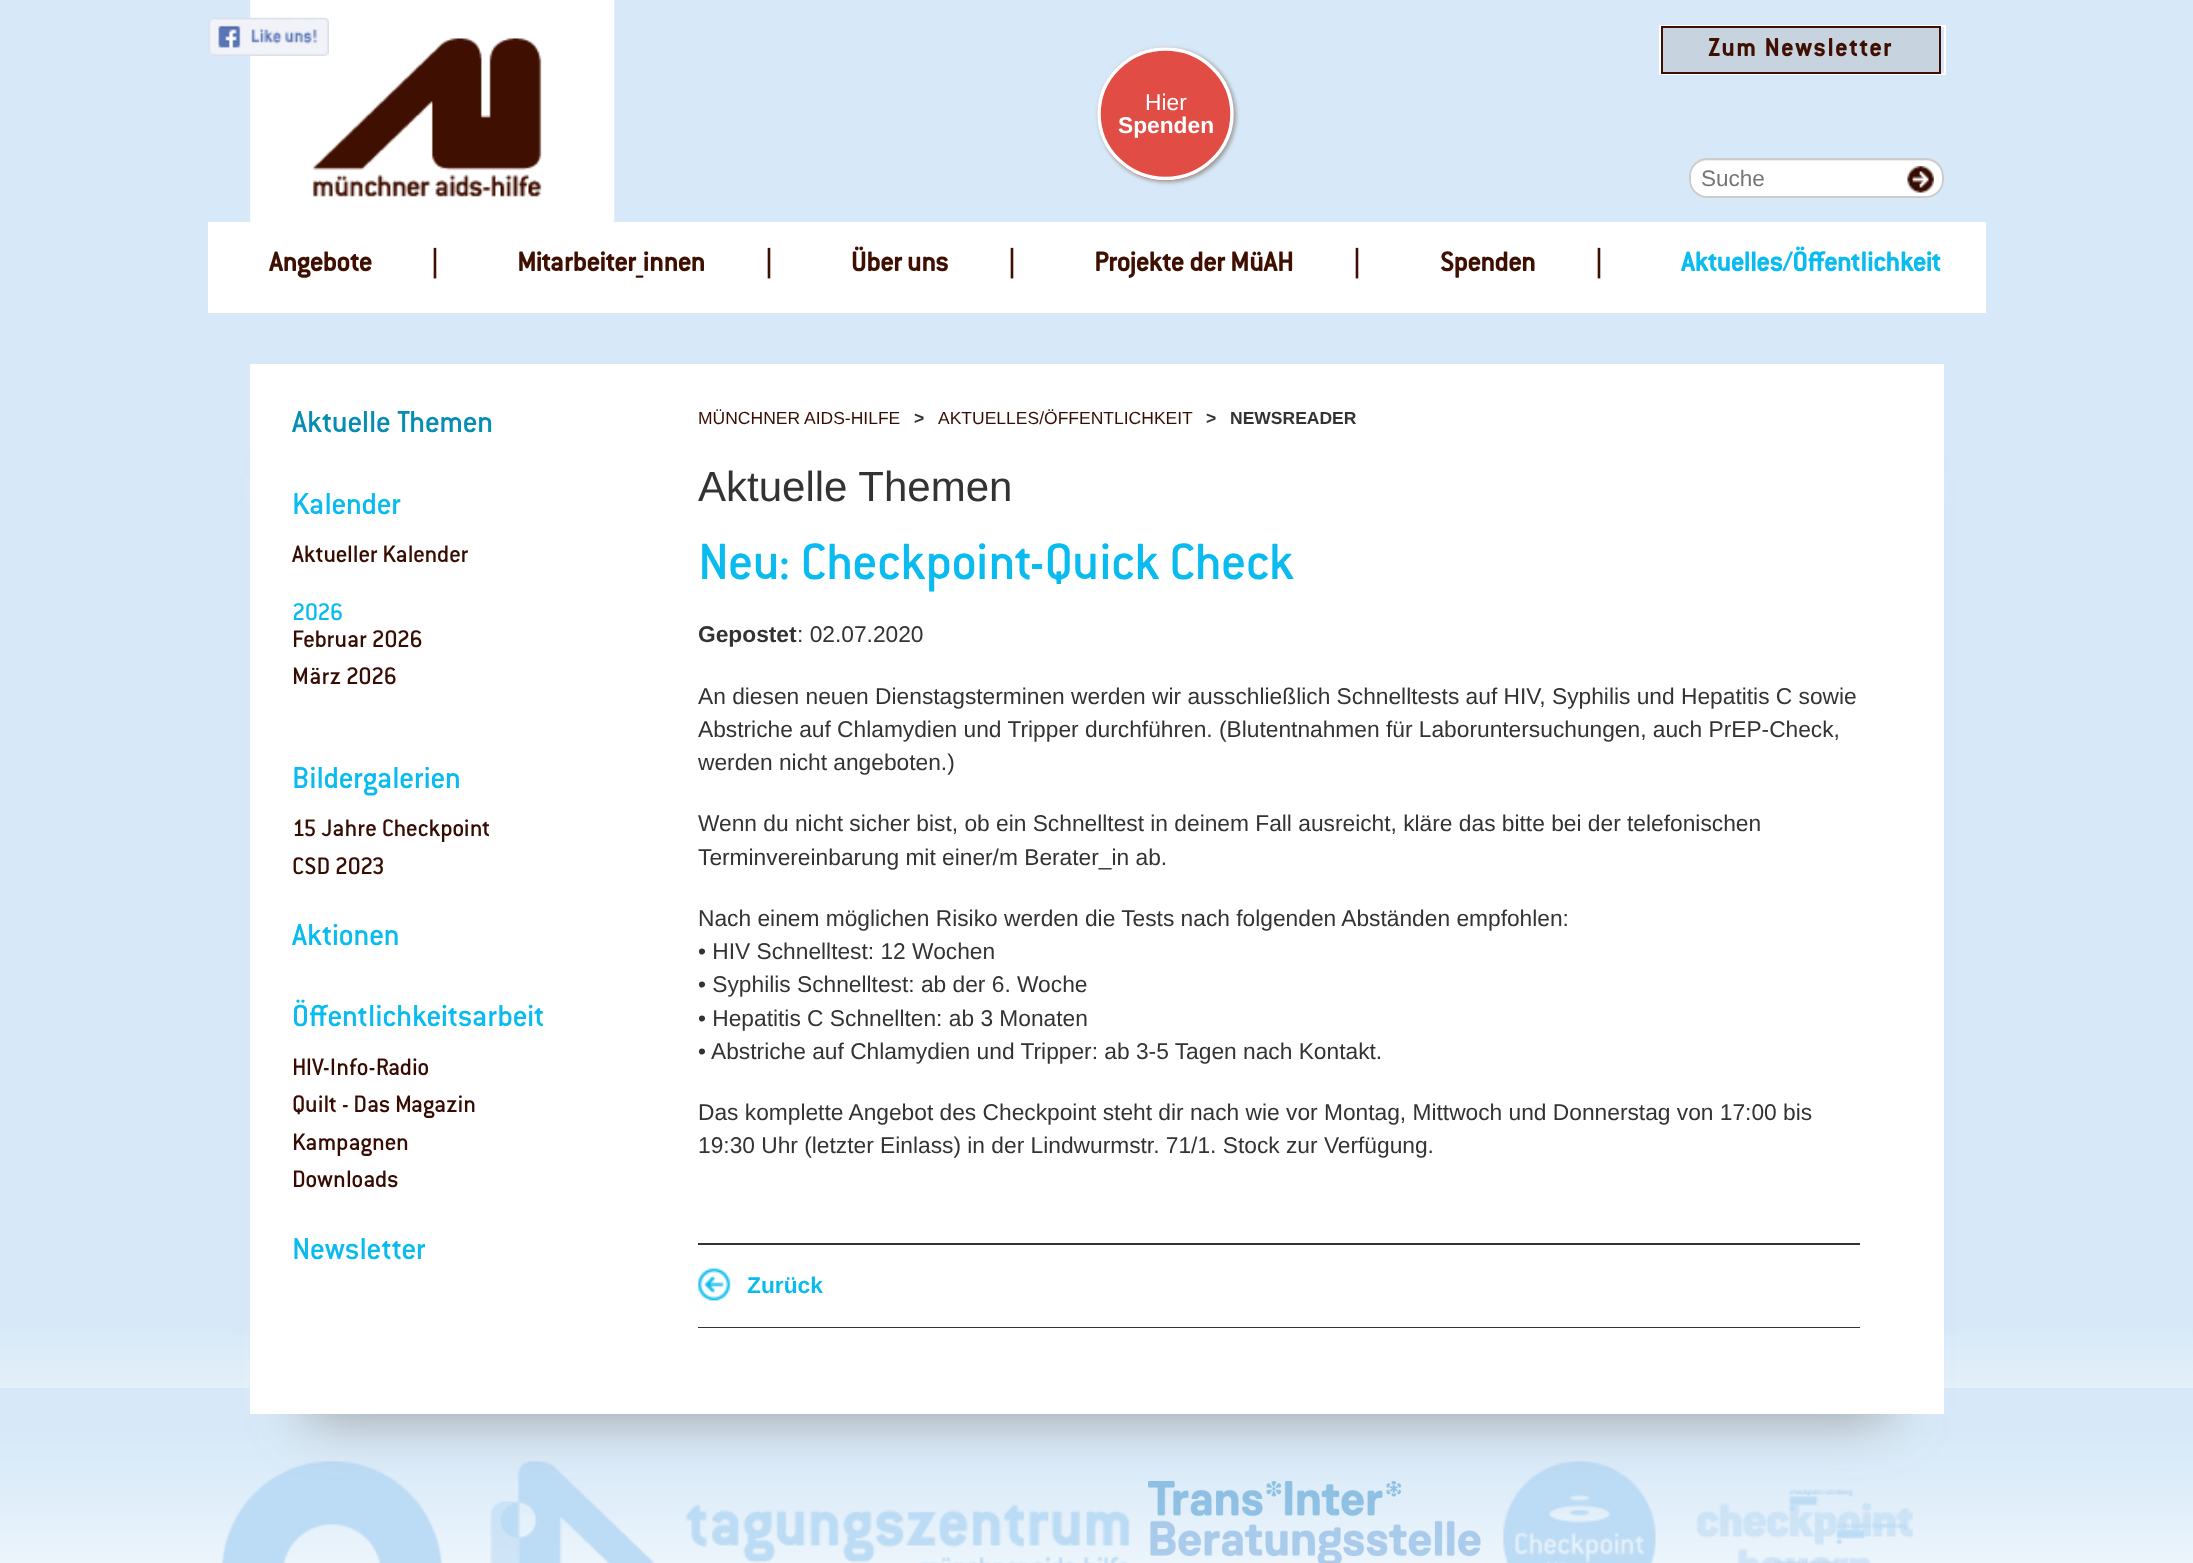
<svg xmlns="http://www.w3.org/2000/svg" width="2193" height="1563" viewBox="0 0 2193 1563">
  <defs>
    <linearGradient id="g1" gradientUnits="userSpaceOnUse" x1="1097" y1="0" x2="1097" y2="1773"><stop offset="0.75" stop-color="#d7e9f8"/><stop offset="0.85" stop-color="#ffffff"/></linearGradient>
    <filter id="blur1" x="-50%" y="-200%" width="200%" height="500%"><feGaussianBlur stdDeviation="2"/></filter>
    <filter id="blur2" x="-50%" y="-200%" width="200%" height="500%"><feGaussianBlur stdDeviation="28"/></filter>
  </defs>
  <rect width="100%" height="100%" fill="#ffffff"/>
  <rect x="0" y="0" width="2193" height="1388" fill="url(#g1)"/>
  <image x="0" y="1388" width="2193" height="175" href="img1.png"/>
  <image x="250" y="0" width="365" height="222" href="img2.png"/>
  <image x="208" y="17" width="121" height="39" href="img3.png"/>
  <rect x="1660" y="26" width="285" height="48" fill="none" stroke="#ffffff" stroke-width="2"/>
  <rect x="1662" y="27" width="278" height="46" fill="#3f0f01" fill-opacity="0.1" stroke="#3f0f01" stroke-width="2"/>
  <text x="1708" y="56" font-family="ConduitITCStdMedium" font-size="27.25" font-weight="bold" letter-spacing="1.9" fill="#3f0f01">Zum Newsletter</text>
  <rect x="1099" y="49" width="137" height="133" rx="66.5" fill="#999999" filter="url(#blur1)"/>
  <ellipse cx="1165.5" cy="114" rx="68" ry="66.5" fill="#e14c45"/>
  <path d="M1165.5 49C1202 49 1232 78 1232 114C1232 149.5 1202 178.5 1165.5 178.5C1129 178.5 1099 149.5 1099 114C1099 78 1129 49 1165.5 49Z" fill="none" stroke="#ffffff" stroke-width="3.5"/>
  <text x="1145" y="110" font-family="Liberation Sans" font-size="22.75" fill="#ffffff">Hier</text>
  <text x="1118" y="133" font-family="Liberation Sans" font-size="22.75" font-weight="bold" fill="#ffffff">Spenden</text>
  <rect x="1689" y="158" width="255" height="40" rx="18" fill="#ffffff"/>
  <path d="M1706 161H1927C1935 161 1942 168 1942 177V182C1942 184 1942 186 1941 188C1942 185 1943 183 1943 180V175C1943 166 1936 159 1927 159H1707C1700 159 1694 163 1692 170C1695 164 1700 161 1706 161Z" fill="#eeeeee"/>
  <rect x="1690" y="159" width="253" height="38" rx="17" fill="none" stroke="#cccccc" stroke-width="2"/>
  <text x="1701" y="186" font-family="Liberation Sans" font-size="22.5" fill="#757575">Suche</text>
  <image x="1907" y="166" width="27" height="27" href="img4.png"/>
  <rect x="208" y="222" width="1778" height="91" fill="#ffffff"/>
  <text x="269" y="271" font-family="ConduitITCStdMedium" font-size="29.75" font-weight="bold" fill="#3f0f01">Angebote</text>
  <text x="431" y="271" font-family="ConduitITCStdMedium" font-size="29.75" font-weight="bold" fill="#3f0f01">|</text>
  <text x="517" y="271" font-family="ConduitITCStdMedium" font-size="29.75" font-weight="bold" fill="#3f0f01">Mitarbeiter_innen</text>
  <text x="765" y="271" font-family="ConduitITCStdMedium" font-size="29.75" font-weight="bold" fill="#3f0f01">|</text>
  <text x="851" y="271" font-family="ConduitITCStdMedium" font-size="29.75" font-weight="bold" fill="#3f0f01">Über uns</text>
  <text x="1008" y="271" font-family="ConduitITCStdMedium" font-size="29.75" font-weight="bold" fill="#3f0f01">|</text>
  <text x="1094" y="271" font-family="ConduitITCStdMedium" font-size="29.75" font-weight="bold" fill="#3f0f01">Projekte der MüAH</text>
  <text x="1353" y="271" font-family="ConduitITCStdMedium" font-size="29.75" font-weight="bold" fill="#3f0f01">|</text>
  <text x="1440" y="271" font-family="ConduitITCStdMedium" font-size="29.75" font-weight="bold" fill="#3f0f01">Spenden</text>
  <text x="1595" y="271" font-family="ConduitITCStdMedium" font-size="29.75" font-weight="bold" fill="#3f0f01">|</text>
  <text x="1681" y="271" font-family="ConduitITCStdMedium" font-size="29.75" font-weight="bold" fill="#0abbef">Aktuelles/Öffentlichkeit</text>
  <image x="222" y="1461" width="221" height="102" href="img6.png"/>
  <image x="490" y="1461" width="165" height="102" href="img7.png"/>
  <image x="1148" y="1481" width="333" height="82" href="img9.png"/>
  <image x="1503" y="1461" width="153" height="102" href="img10.png"/>
  <image x="1696" y="1489" width="217" height="74" href="img11.png"/>
  <rect x="306" y="476" width="1582" height="938" fill="#999999" filter="url(#blur2)"/>
  <rect x="250" y="364" width="1694" height="1050" fill="#ffffff"/>
  <text x="292" y="432" font-family="ConduitITCStdMedium" font-size="33.25" font-weight="500" fill="#078db4">Aktuelle Themen</text>
  <text x="292" y="514" font-family="ConduitITCStdMedium" font-size="33.25" font-weight="500" fill="#0abbef">Kalender</text>
  <text x="292" y="562" font-family="ConduitITCStdMedium" font-size="26.25" font-weight="500" fill="#370d03">Aktueller Kalender</text>
  <text x="292" y="620" font-family="ConduitITCStdMedium" font-size="26.25" font-weight="500" fill="#0abbef">2026</text>
  <text x="292" y="647" font-family="ConduitITCStdMedium" font-size="26.25" font-weight="500" fill="#370d03">Februar 2026</text>
  <text x="292" y="684" font-family="ConduitITCStdMedium" font-size="26.25" font-weight="500" fill="#370d03">März 2026</text>
  <text x="292" y="788" font-family="ConduitITCStdMedium" font-size="33.25" font-weight="500" fill="#0abbef">Bildergalerien</text>
  <text x="292" y="836" font-family="ConduitITCStdMedium" font-size="26.25" font-weight="500" fill="#370d03">15 Jahre Checkpoint</text>
  <text x="292" y="874" font-family="ConduitITCStdMedium" font-size="26.25" font-weight="500" fill="#370d03">CSD 2023</text>
  <text x="292" y="945" font-family="ConduitITCStdMedium" font-size="33.25" font-weight="500" fill="#0abbef">Aktionen</text>
  <text x="292" y="1026" font-family="ConduitITCStdMedium" font-size="33.25" font-weight="500" fill="#0abbef">Öffentlichkeitsarbeit</text>
  <text x="292" y="1075" font-family="ConduitITCStdMedium" font-size="26.25" font-weight="500" fill="#370d03">HIV-Info-Radio</text>
  <text x="292" y="1112" font-family="ConduitITCStdMedium" font-size="26.25" font-weight="500" fill="#370d03">Quilt - Das Magazin</text>
  <text x="292" y="1150" font-family="ConduitITCStdMedium" font-size="26.25" font-weight="500" fill="#370d03">Kampagnen</text>
  <text x="292" y="1187" font-family="ConduitITCStdMedium" font-size="26.25" font-weight="500" fill="#370d03">Downloads</text>
  <text x="292" y="1259" font-family="ConduitITCStdMedium" font-size="33.25" font-weight="500" fill="#0abbef">Newsletter</text>
  <text x="698" y="424" font-family="Liberation Sans" font-size="17.5" fill="#370d03">MÜNCHNER AIDS-HILFE</text>
  <text x="914" y="424" font-family="Liberation Sans" font-size="17.5" font-weight="bold" fill="#333333">&gt;</text>
  <text x="938" y="424" font-family="Liberation Sans" font-size="17.5" fill="#370d03">AKTUELLES/ÖFFENTLICHKEIT</text>
  <text x="1206" y="424" font-family="Liberation Sans" font-size="17.5" font-weight="bold" fill="#333333">&gt;</text>
  <text x="1230" y="424" font-family="Liberation Sans" font-size="17.5" font-weight="bold" fill="#333333">NEWSREADER</text>
  <text x="698" y="501" font-family="Liberation Sans" font-size="42" fill="#333333">Aktuelle Themen</text>
  <text x="698" y="579" font-family="ConduitITCStdMedium" font-size="56" font-weight="500" fill="#0abbef">Neu: Checkpoint-Quick Check</text>
  <text x="698" y="642" font-family="Liberation Sans" font-size="22.75" font-weight="bold" fill="#333333">Gepostet</text>
  <text x="797" y="642" font-family="Liberation Sans" font-size="22.75" fill="#333333">: 02.07.2020</text>
  <text x="698" y="704" font-family="Liberation Sans" font-size="22.75" fill="#333333">An diesen neuen Dienstagsterminen werden wir ausschließlich Schnelltests auf HIV, Syphilis und Hepatitis C sowie</text>
  <text x="698" y="737" font-family="Liberation Sans" font-size="22.75" fill="#333333">Abstriche auf Chlamydien und Tripper durchführen. (Blutentnahmen für Laboruntersuchungen, auch PrEP-Check,</text>
  <text x="698" y="770" font-family="Liberation Sans" font-size="22.75" fill="#333333">werden nicht angeboten.)</text>
  <text x="698" y="831" font-family="Liberation Sans" font-size="22.75" fill="#333333">Wenn du nicht sicher bist, ob ein Schnelltest in deinem Fall ausreicht, kläre das bitte bei der telefonischen</text>
  <text x="698" y="865" font-family="Liberation Sans" font-size="22.75" fill="#333333">Terminvereinbarung mit einer/m Berater_in ab.</text>
  <text x="698" y="926" font-family="Liberation Sans" font-size="22.75" fill="#333333">Nach einem möglichen Risiko werden die Tests nach folgenden Abständen empfohlen:</text>
  <text x="698" y="959" font-family="Liberation Sans" font-size="22.75" fill="#333333">• HIV Schnelltest: 12 Wochen</text>
  <text x="698" y="992" font-family="Liberation Sans" font-size="22.75" fill="#333333">• Syphilis Schnelltest: ab der 6. Woche</text>
  <text x="698" y="1026" font-family="Liberation Sans" font-size="22.75" fill="#333333">• Hepatitis C Schnellten: ab 3 Monaten</text>
  <text x="698" y="1059" font-family="Liberation Sans" font-size="22.75" fill="#333333">• Abstriche auf Chlamydien und Tripper: ab 3-5 Tagen nach Kontakt.</text>
  <text x="698" y="1120" font-family="Liberation Sans" font-size="22.75" fill="#333333">Das komplette Angebot des Checkpoint steht dir nach wie vor Montag, Mittwoch und Donnerstag von 17:00 bis</text>
  <text x="698" y="1153" font-family="Liberation Sans" font-size="22.75" fill="#333333">19:30 Uhr (letzter Einlass) in der Lindwurmstr. 71/1. Stock zur Verfügung.</text>
  <image x="698" y="1268" width="33" height="33" href="img5.png"/>
  <rect x="698" y="1243" width="1162" height="2" fill="#333333"/>
  <rect x="698" y="1327" width="1162" height="1" fill="#333333"/>
  <text x="747" y="1293" font-family="Liberation Sans" font-size="22.75" font-weight="bold" fill="#0abbef">Zurück</text>
  <image x="685" y="1504" width="445" height="59" href="img8.png"/>
</svg>
